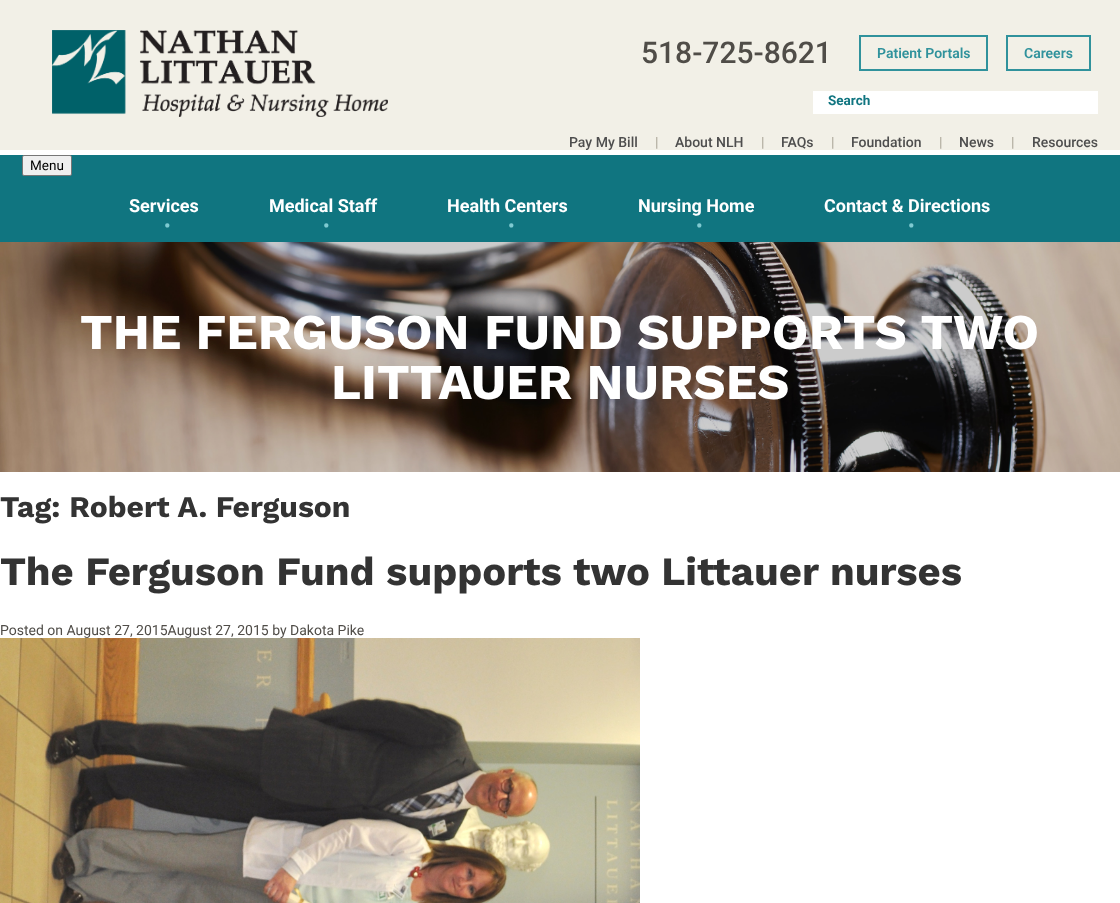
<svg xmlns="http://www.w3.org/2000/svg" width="1120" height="903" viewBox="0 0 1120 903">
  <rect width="100%" height="100%" fill="#ffffff"/>
  <rect x="0" y="0" width="1120" height="150" fill="#f2f0e7"/>
  <image x="52" y="30" width="336" height="87" href="img1.png"/>
  <text x="641" y="63" font-family="Roboto" font-size="30" font-weight="500" fill="#504d48">518-725-8621</text>
  <rect x="860" y="36" width="127" height="34" fill="none" stroke="#30929c" stroke-width="2"/>
  <text x="877" y="58" font-family="Roboto" font-size="14" font-weight="600" fill="#30929c">Patient Portals</text>
  <rect x="1007" y="36" width="83" height="34" fill="none" stroke="#30929c" stroke-width="2"/>
  <text x="1024" y="58" font-family="Roboto" font-size="14" font-weight="600" fill="#30929c">Careers</text>
  <rect x="813" y="91" width="285" height="23" fill="#ffffff"/>
  <text x="828" y="105" font-family="Roboto" font-size="13.5" font-weight="bold" fill="#107580">Search</text>
  <text x="569" y="147" font-family="Roboto" font-size="14" font-weight="500" fill="#4e4e4e">Pay My Bill</text>
  <text x="655" y="147" font-family="Roboto" font-size="14" font-weight="500" fill="#afaa9c">|</text>
  <text x="675" y="147" font-family="Roboto" font-size="14" font-weight="500" fill="#4e4e4e">About NLH</text>
  <text x="761" y="147" font-family="Roboto" font-size="14" font-weight="500" fill="#afaa9c">|</text>
  <text x="781" y="147" font-family="Roboto" font-size="14" font-weight="500" fill="#4e4e4e">FAQs</text>
  <text x="831" y="147" font-family="Roboto" font-size="14" font-weight="500" fill="#afaa9c">|</text>
  <text x="851" y="147" font-family="Roboto" font-size="14" font-weight="500" fill="#4e4e4e">Foundation</text>
  <text x="939" y="147" font-family="Roboto" font-size="14" font-weight="500" fill="#afaa9c">|</text>
  <text x="959" y="147" font-family="Roboto" font-size="14" font-weight="500" fill="#4e4e4e">News</text>
  <text x="1011" y="147" font-family="Roboto" font-size="14" font-weight="500" fill="#afaa9c">|</text>
  <text x="1032" y="147" font-family="Roboto" font-size="14" font-weight="500" fill="#4e4e4e">Resources</text>
  <rect x="0" y="155" width="1120" height="87" fill="#107580"/>
  <rect x="22.5" y="155.5" width="49" height="20" rx="1.5" fill="#efefef" stroke="#767676"/>
  <text x="30" y="170" font-family="Roboto" font-size="13.5" fill="#000000">Menu</text>
  <text x="129" y="212" font-family="Roboto" font-size="18" font-weight="bold" fill="#ffffff">Services</text>
  <text x="164" y="232" font-family="Roboto" font-size="18" font-weight="bold" fill="#7fcad1">•</text>
  <text x="269" y="212" font-family="Roboto" font-size="18" font-weight="bold" fill="#ffffff">Medical Staff</text>
  <text x="323" y="232" font-family="Roboto" font-size="18" font-weight="bold" fill="#7fcad1">•</text>
  <text x="447" y="212" font-family="Roboto" font-size="18" font-weight="bold" fill="#ffffff">Health Centers</text>
  <text x="508" y="232" font-family="Roboto" font-size="18" font-weight="bold" fill="#7fcad1">•</text>
  <text x="638" y="212" font-family="Roboto" font-size="18" font-weight="bold" fill="#ffffff">Nursing Home</text>
  <text x="696" y="232" font-family="Roboto" font-size="18" font-weight="bold" fill="#7fcad1">•</text>
  <text x="824" y="212" font-family="Roboto" font-size="18" font-weight="bold" fill="#ffffff">Contact &amp; Directions</text>
  <text x="908" y="232" font-family="Roboto" font-size="18" font-weight="bold" fill="#7fcad1">•</text>
  <image x="0" y="242" width="1120" height="230" href="img2.png"/>
  <text x="80" y="349" font-family="Work Sans" font-size="50" font-weight="bold" fill="#ffffff">THE FERGUSON FUND SUPPORTS TWO</text>
  <text x="331" y="399" font-family="Work Sans" font-size="50" font-weight="bold" fill="#ffffff">LITTAUER NURSES</text>
  <text x="0" y="517" font-family="Work Sans" font-size="30" font-weight="bold" fill="#333333">Tag: Robert A. Ferguson</text>
  <text x="0" y="585" font-family="Work Sans" font-size="40" font-weight="bold" fill="#333333">The Ferguson Fund supports two Littauer nurses</text>
  <text x="0" y="635" font-family="Roboto" font-size="14" fill="#504d48">Posted on August 27, 2015August 27, 2015 by Dakota Pike</text>
  <image x="0" y="638" width="640" height="265" href="img3.png"/>
</svg>
